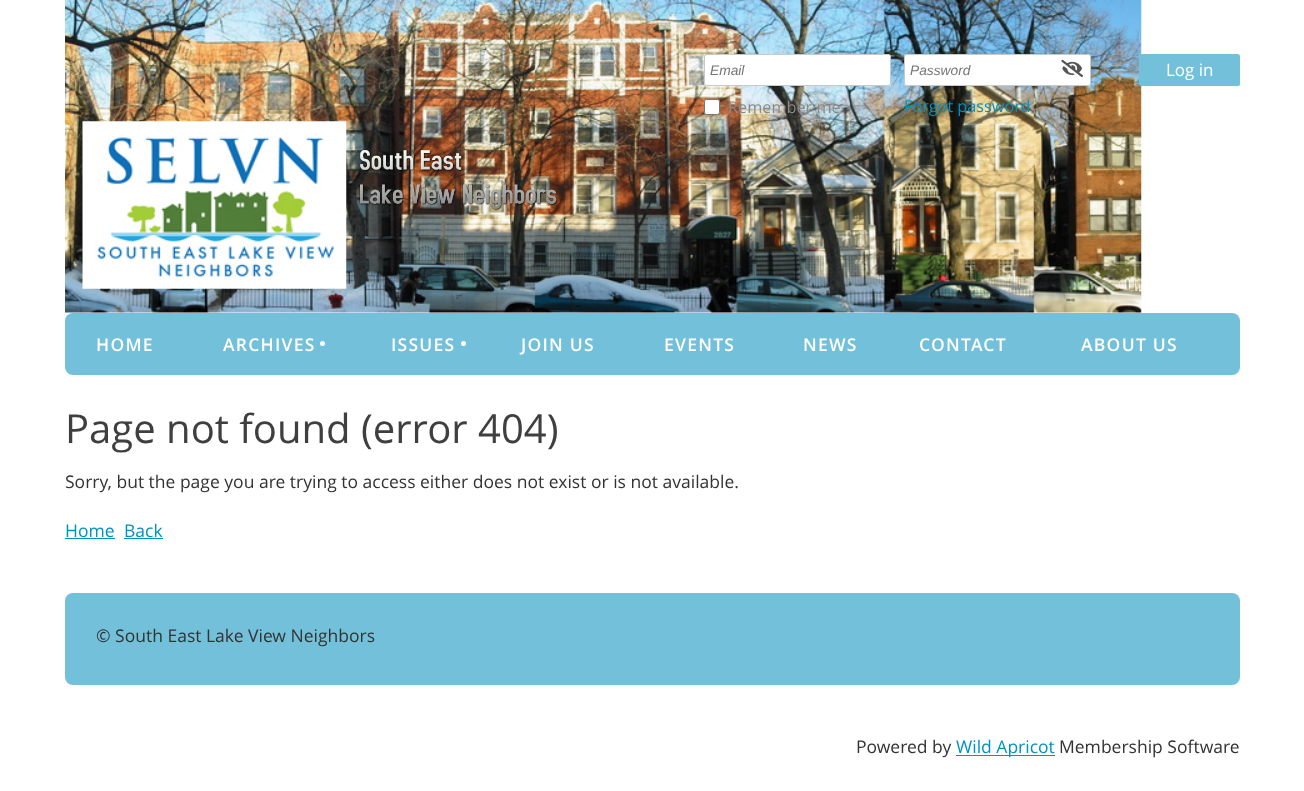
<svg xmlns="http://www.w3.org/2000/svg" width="1304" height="791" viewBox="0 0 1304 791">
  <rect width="100%" height="100%" fill="#ffffff"/>
  <image x="65" y="0" width="1077" height="313" href="img1.png"/>
  <rect x="704" y="54" width="187" height="32" rx="2.5" fill="#ffffff"/>
  <rect x="704.5" y="54.5" width="186" height="31" rx="2" fill="none" stroke="#000000" stroke-opacity="0.21"/>
  <text x="710" y="75" font-family="Liberation Sans" font-size="13.75" font-style="italic" fill="#757575">Email</text>
  <rect x="904" y="54" width="187" height="32" rx="2.5" fill="#ffffff"/>
  <rect x="904.5" y="54.5" width="186" height="31" rx="2" fill="none" stroke="#000000" stroke-opacity="0.21"/>
  <text x="910" y="75" font-family="Liberation Sans" font-size="13.75" font-style="italic" fill="#757575">Password</text>
  <image x="1061" y="59" width="23" height="19" href="img2.png"/>
  <rect x="1139" y="54" width="101" height="32" rx="2.5" fill="#73c0da"/>
  <text x="1166" y="76" font-family="Open Sans" font-size="17" fill="#ffffff">Log in</text>
  <rect x="704.5" y="99.5" width="15" height="15" rx="2" fill="#ffffff" stroke="#767676"/>
  <text x="728" y="113" font-family="Open Sans" font-size="16.25" fill="#8a8a8a">Remember me</text>
  <text x="904" y="112" font-family="Open Sans" font-size="16.25" fill="#0092c3">Forgot password</text>
  <image x="82" y="121" width="265" height="168" href="img3.png"/>
  <image x="359" y="149" width="199" height="62" href="img4.png"/>
  <rect x="65" y="313" width="1175" height="62" rx="8" fill="#73c0da"/>
  <text x="96" y="351" font-family="Open Sans" font-size="17.5" font-weight="600" letter-spacing="1.25" fill="#ffffff">HOME</text>
  <text x="223" y="351" font-family="Open Sans" font-size="17.5" font-weight="600" letter-spacing="1.25" fill="#ffffff">ARCHIVES</text>
  <circle cx="322.5" cy="343.5" r="2.5" fill="#ffffff"/>
  <text x="391" y="351" font-family="Open Sans" font-size="17.5" font-weight="600" letter-spacing="1.25" fill="#ffffff">ISSUES</text>
  <circle cx="463.5" cy="343.5" r="2.5" fill="#ffffff"/>
  <text x="521" y="351" font-family="Open Sans" font-size="17.5" font-weight="600" letter-spacing="1.25" fill="#ffffff">JOIN US</text>
  <text x="664" y="351" font-family="Open Sans" font-size="17.5" font-weight="600" letter-spacing="1.25" fill="#ffffff">EVENTS</text>
  <text x="803" y="351" font-family="Open Sans" font-size="17.5" font-weight="600" letter-spacing="1.25" fill="#ffffff">NEWS</text>
  <text x="919" y="351" font-family="Open Sans" font-size="17.5" font-weight="600" letter-spacing="1.25" fill="#ffffff">CONTACT</text>
  <text x="1081" y="351" font-family="Open Sans" font-size="17.5" font-weight="600" letter-spacing="1.25" fill="#ffffff">ABOUT US</text>
  <text x="65" y="443" font-family="Open Sans" font-size="40" fill="#3f3f3f">Page not found (error 404)</text>
  <text x="65" y="488" font-family="Open Sans" font-size="17.5" fill="#333333">Sorry, but the page you are trying to access either does not exist or is not available.</text>
  <text x="65" y="537" font-family="Open Sans" font-size="17.5" fill="#0092c3">Home</text>
  <rect x="65" y="538" width="50" height="1" fill="#0092c3"/>
  <text x="124" y="537" font-family="Open Sans" font-size="17.5" fill="#0092c3">Back</text>
  <rect x="124" y="538" width="39" height="1" fill="#0092c3"/>
  <rect x="65" y="593" width="1175" height="92" rx="8" fill="#73c0da"/>
  <text x="96" y="642" font-family="Open Sans" font-size="17.5" fill="#333333">© South East Lake View Neighbors</text>
  <text x="856" y="753" font-family="Open Sans" font-size="17.5" fill="#333333">Powered by</text>
  <rect x="956" y="755" width="99" height="1" fill="#0092c3"/>
  <text x="956" y="753" font-family="Open Sans" font-size="17.5" fill="#0092c3">Wild Apricot</text>
  <text x="1059" y="753" font-family="Open Sans" font-size="17.5" fill="#333333">Membership Software</text>
</svg>
